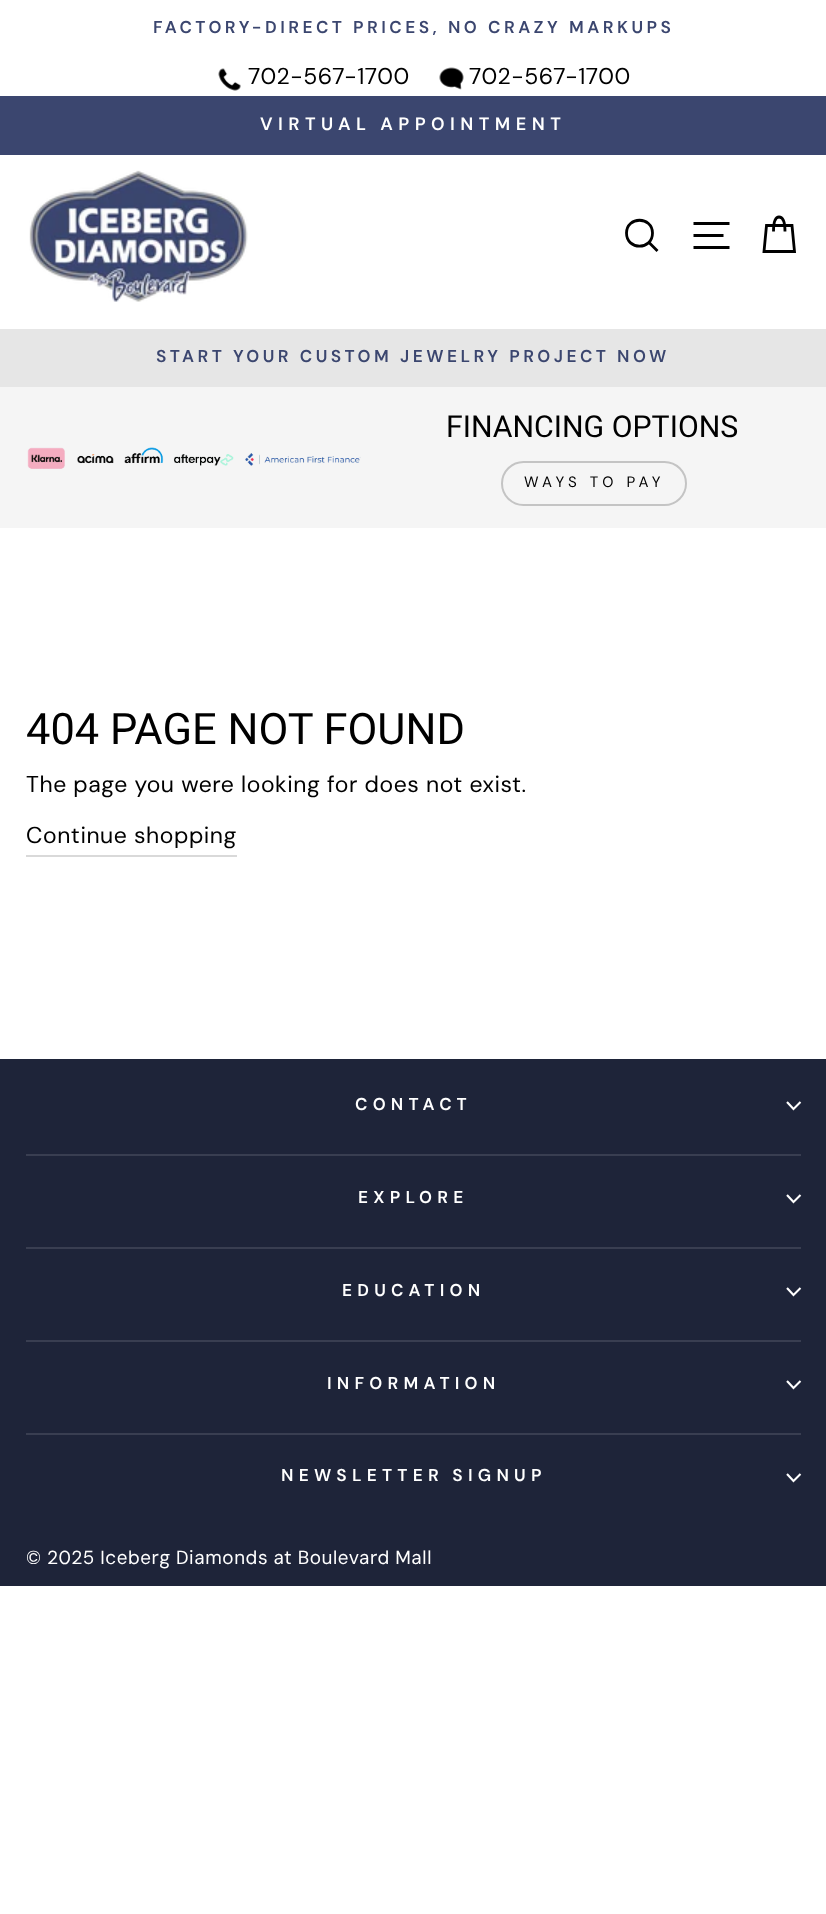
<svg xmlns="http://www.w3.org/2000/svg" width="826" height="1914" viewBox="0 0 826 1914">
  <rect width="100%" height="100%" fill="#ffffff"/>
  <rect x="0" y="387" width="826" height="141" fill="#f5f5f5"/>
  <text x="153" y="33" font-family="DM Sans" font-size="17.2" font-weight="600" letter-spacing="3.45" fill="#3b466f">FACTORY-DIRECT PRICES, NO CRAZY MARKUPS</text>
  <image x="218" y="68" width="23" height="23" href="img1.png"/>
  <text x="248" y="84" font-family="DM Sans" font-size="22.95" letter-spacing="0.55" fill="#000000">702-567-1700</text>
  <image x="439" y="67" width="25" height="23" href="img2.png"/>
  <text x="469" y="84" font-family="DM Sans" font-size="22.95" letter-spacing="0.55" fill="#000000">702-567-1700</text>
  <rect x="0" y="96" width="826" height="59" fill="#3b466f"/>
  <text x="260" y="130" word-spacing="-1" font-family="DM Sans" font-size="18" font-weight="600" letter-spacing="5.4" fill="#ffffff">VIRTUAL APPOINTMENT</text>
  <image x="29" y="170" width="219" height="132" href="img3.png"/>
  <path d="M652.5 233C652.5 250.5 626.5 250.5 626.5 233C626.5 216 652.5 216 652.5 233ZM657.5 251L649 242.5" fill="none" stroke="#000000" stroke-width="2.8"/>
  <path d="M693.5 223.5H729.5M693.5 235.5H723.5M693.5 247.5H729.5" fill="none" stroke="#000000" stroke-width="2.8"/>
  <path d="M773.5 231.5C773.5 220 776 217 779 217C782.5 217 785 220 785 231.5M766.5 225.5H792L794.5 251.5H764Z" fill="none" stroke="#000000" stroke-width="2.8"/>
  <rect x="0" y="329" width="826" height="58" fill="#e6e6e6"/>
  <text x="156" y="362" font-family="DM Sans" font-size="17.2" font-weight="600" letter-spacing="3.45" fill="#3b466f">START YOUR CUSTOM JEWELRY PROJECT NOW</text>
  <image x="27" y="447" width="334" height="22" href="img4.png"/>
  <text x="446" y="437" font-family="Roboto" font-size="30.25" fill="#000000">FINANCING OPTIONS</text>
  <rect x="502" y="462" width="184" height="43" rx="21.5" fill="none" stroke="#c4c4c4" stroke-width="2"/>
  <text x="524" y="487" font-family="'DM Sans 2'" font-size="15" letter-spacing="4.5" fill="#000000">WAYS TO PAY</text>
  <text x="26" y="744" font-family="Roboto" font-size="43.4" fill="#000000">404 PAGE NOT FOUND</text>
  <text x="26" y="792" font-family="DM Sans" font-size="22.95" letter-spacing="0.55" fill="#000000">The page you were looking for does not exist.</text>
  <rect x="26" y="855" width="211" height="2" fill="#d9d9d9"/>
  <text x="26" y="843" font-family="DM Sans" font-size="22.95" letter-spacing="0.55" fill="#000000">Continue shopping</text>
  <rect x="0" y="1059" width="826" height="527" fill="#1e2439"/>
  <text x="355" y="1110" font-family="DM Sans" font-size="17.2" font-weight="600" letter-spacing="5.2" fill="#ffffff">CONTACT</text>
  <path d="M787 1102L793.5 1109L800.5 1102" fill="none" stroke="#ffffff" stroke-width="2.1"/>
  <rect x="26" y="1154" width="775" height="2" fill="#393e51"/>
  <text x="358" y="1203" font-family="DM Sans" font-size="17.2" font-weight="600" letter-spacing="5.2" fill="#ffffff">EXPLORE</text>
  <path d="M787 1195L793.5 1202L800.5 1195" fill="none" stroke="#ffffff" stroke-width="2.1"/>
  <rect x="26" y="1247" width="775" height="2" fill="#393e51"/>
  <text x="342" y="1296" font-family="DM Sans" font-size="17.2" font-weight="600" letter-spacing="5.2" fill="#ffffff">EDUCATION</text>
  <path d="M787 1288L793.5 1295L800.5 1288" fill="none" stroke="#ffffff" stroke-width="2.1"/>
  <rect x="26" y="1340" width="775" height="2" fill="#393e51"/>
  <text x="327" y="1389" font-family="DM Sans" font-size="17.2" font-weight="600" letter-spacing="5.2" fill="#ffffff">INFORMATION</text>
  <path d="M787 1381L793.5 1388L800.5 1381" fill="none" stroke="#ffffff" stroke-width="2.1"/>
  <rect x="26" y="1433" width="775" height="2" fill="#393e51"/>
  <text x="281" y="1481" word-spacing="-1" font-family="DM Sans" font-size="17.2" font-weight="600" letter-spacing="5.2" fill="#ffffff">NEWSLETTER SIGNUP</text>
  <path d="M787 1474L793.5 1481L800.5 1474" fill="none" stroke="#ffffff" stroke-width="2.1"/>
  <text x="26" y="1564" word-spacing="-0.25" font-family="'DM Sans 2'" font-size="18.9" letter-spacing="0.55" fill="#ffffff">© 2025 Iceberg Diamonds at Boulevard Mall</text>
</svg>
